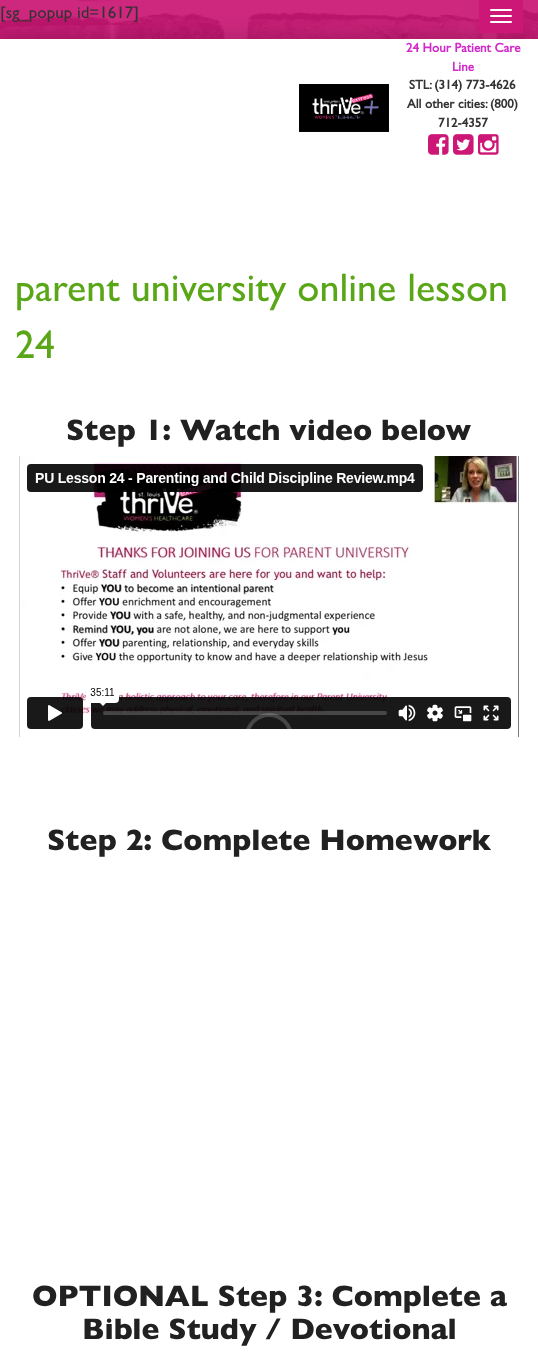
<svg xmlns="http://www.w3.org/2000/svg" width="538" height="1363" viewBox="0 0 538 1363">
  <defs>
    <filter id="blur1" x="-50%" y="-200%" width="200%" height="500%"><feGaussianBlur stdDeviation="10"/></filter>
  </defs>
  <rect width="100%" height="100%" fill="#cd1777"/>
  <image x="0" y="0" width="538" height="39" href="img1.png"/>
  <rect x="0" y="39" width="538" height="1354" fill="#000000" fill-opacity="0.2" filter="url(#blur1)"/>
  <text x="0" y="18" font-family="Gill Sans" font-size="17" fill="#333333">[sg_popup id=1617]</text>
  <rect x="0" y="39" width="538" height="1324" fill="#ffffff"/>
  <rect x="479" y="0" width="44" height="33" fill="#cd1777"/>
  <rect x="490" y="9" width="22" height="2" rx="1" fill="#ffffff"/>
  <rect x="490" y="15" width="22" height="2" rx="1" fill="#ffffff"/>
  <rect x="490" y="21" width="22" height="2" rx="1" fill="#ffffff"/>
  <image x="299" y="84" width="90" height="48" href="img2.png"/>
  <text x="406" y="52" font-family="Gill Sans" font-size="13" font-weight="bold" fill="#d229ca">24 Hour Patient Care</text>
  <text x="452" y="71" font-family="Gill Sans" font-size="13" font-weight="bold" fill="#d229ca">Line</text>
  <text x="409" y="89" font-family="Gill Sans" font-size="13" font-weight="bold" fill="#333333">STL: (314) 773-4626</text>
  <text x="407" y="108" font-family="Gill Sans" font-size="13" font-weight="bold" fill="#333333">All other cities: (800)</text>
  <text x="438" y="127" font-family="Gill Sans" font-size="13" font-weight="bold" fill="#333333">712-4357</text>
  <image x="428" y="134" width="21" height="21" href="img3.png"/>
  <image x="453" y="134" width="21" height="21" href="img4.png"/>
  <image x="478" y="134" width="21" height="21" href="img5.png"/>
  <text x="15" y="301" font-family="Gill Sans" font-size="40" fill="#59a617">parent university online lesson</text>
  <text x="15" y="358" font-family="Gill Sans" font-size="40" fill="#59a617">24</text>
  <text x="66" y="440" font-family="'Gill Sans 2'" font-size="30" font-weight="bold" fill="#212121">Step 1: Watch video below</text>
  <image x="19" y="456" width="500" height="281" href="img6.png"/>
  <text x="47" y="850" font-family="'Gill Sans 2'" font-size="30" font-weight="bold" fill="#212121">Step 2: Complete Homework</text>
  <text x="32" y="1306" font-family="'Gill Sans 2'" font-size="30" font-weight="bold" fill="#212121">OPTIONAL Step 3: Complete a</text>
  <text x="82" y="1339" font-family="'Gill Sans 2'" font-size="30" font-weight="bold" fill="#212121">Bible Study / Devotional</text>
</svg>
